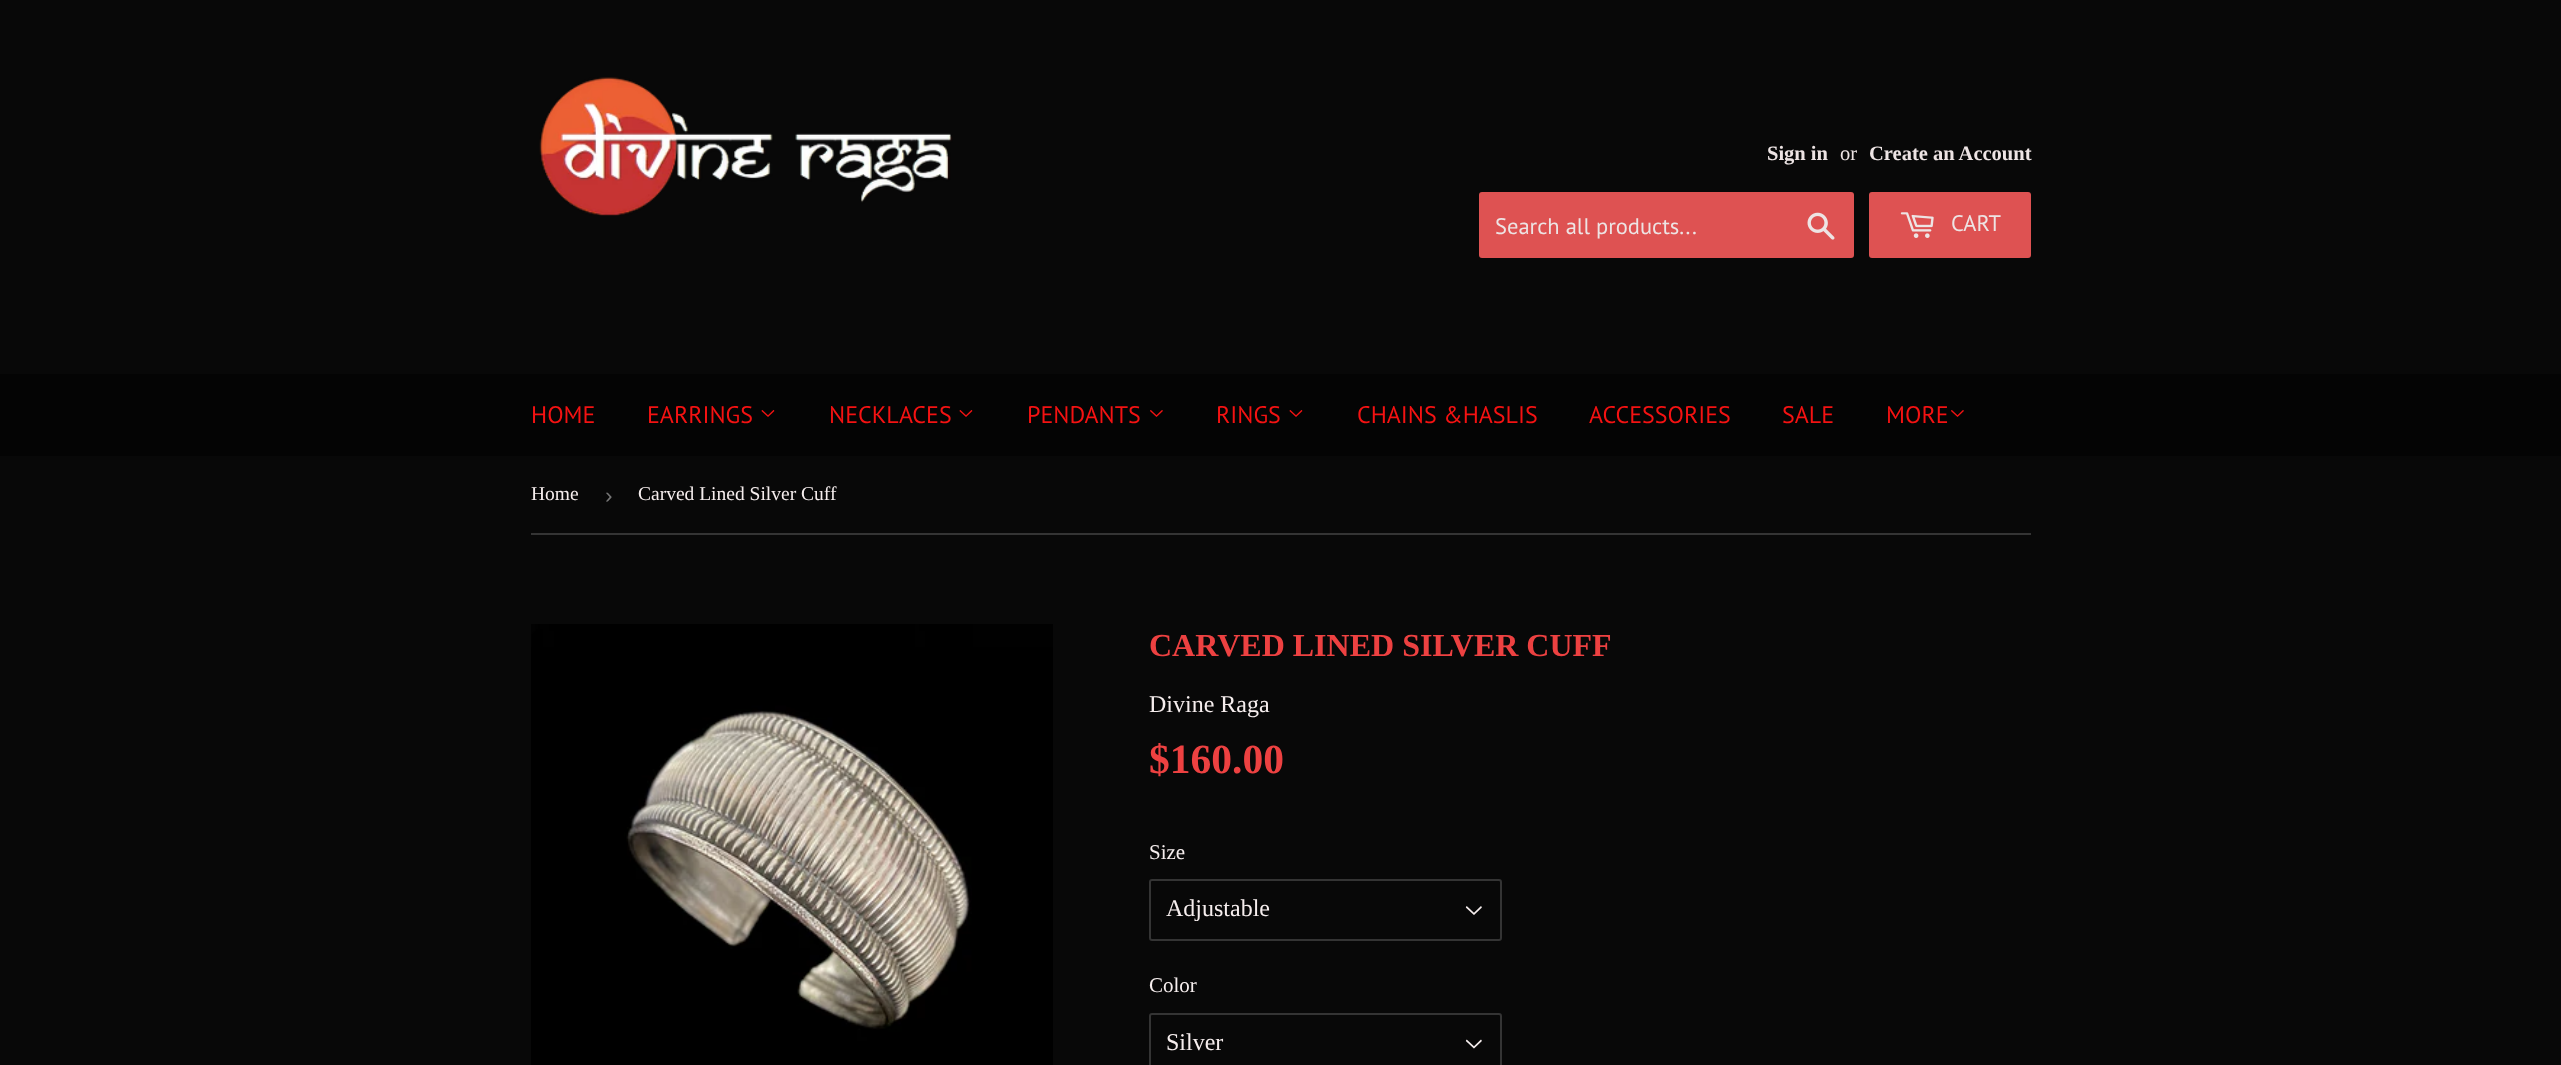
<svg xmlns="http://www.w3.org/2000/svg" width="2561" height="1065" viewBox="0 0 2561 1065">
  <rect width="100%" height="100%" fill="#080808"/>
  <image x="539" y="77" width="414" height="139" href="img1.png"/>
  <text x="1767" y="160" font-family="Liberation Serif" font-size="20.5" font-weight="bold" fill="#ede4e4">Sign in</text>
  <text x="1840" y="160" font-family="Liberation Serif" font-size="20.5" fill="#ede4e4">or</text>
  <text x="1869" y="160" font-family="Liberation Serif" font-size="20.5" font-weight="bold" fill="#ede4e4">Create an Account</text>
  <rect x="1479" y="192" width="375" height="66" rx="3" fill="#de5252"/>
  <text x="1495" y="234" font-family="PT Sans" font-size="22.5" fill="#ede4e4">Search all products...</text>
  <image x="1807" y="212" width="28" height="28" href="img2.png"/>
  <rect x="1869" y="192" width="162" height="66" rx="3" fill="#de5252"/>
  <image x="1900" y="212" width="34" height="26" href="img3.png"/>
  <text x="1951" y="231" font-family="PT Sans" font-size="22.5" fill="#ede4e4">CART</text>
  <rect x="0" y="374" width="2561" height="82" fill="#040404"/>
  <text x="531" y="423" font-family="PT Sans" font-size="24" fill="#f41212">HOME</text>
  <text x="647" y="423" font-family="PT Sans" font-size="24" fill="#f41212">EARRINGS</text>
  <image x="761" y="410" width="14" height="7" href="img4.png"/>
  <text x="829" y="423" font-family="PT Sans" font-size="24" fill="#f41212">NECKLACES</text>
  <image x="959" y="410" width="14" height="7" href="img4.png"/>
  <text x="1027" y="423" font-family="PT Sans" font-size="24" fill="#f41212">PENDANTS</text>
  <image x="1150" y="410" width="13" height="7" href="img5.png"/>
  <text x="1216" y="423" font-family="PT Sans" font-size="24" fill="#f41212">RINGS</text>
  <image x="1289" y="410" width="14" height="7" href="img4.png"/>
  <text x="1357" y="423" font-family="PT Sans" font-size="24" fill="#f41212">CHAINS &amp;HASLIS</text>
  <text x="1589" y="423" font-family="PT Sans" font-size="24" fill="#f41212">ACCESSORIES</text>
  <text x="1782" y="423" font-family="PT Sans" font-size="24" fill="#f41212">SALE</text>
  <text x="1886" y="423" font-family="PT Sans" font-size="24" fill="#f41212">MORE</text>
  <image x="1951" y="410" width="13" height="7" href="img5.png"/>
  <rect x="531" y="533" width="1500" height="2" fill="#343434"/>
  <text x="531" y="500" font-family="Liberation Serif" font-size="19.5" fill="#f6eeee">Home</text>
  <text x="605" y="503" font-family="Liberation Sans" font-size="22.5" fill="#767676">›</text>
  <text x="638" y="500" font-family="Liberation Serif" font-size="19.5" fill="#f6eeee">Carved Lined Silver Cuff</text>
  <image x="531" y="624" width="522" height="441" href="img6.png"/>
  <text x="1149" y="656" font-family="Liberation Serif" font-size="32" font-weight="bold" fill="#ed4141">CARVED LINED SILVER CUFF</text>
  <text x="1149" y="712" font-family="Liberation Serif" font-size="24" fill="#f6eeee">Divine Raga</text>
  <text x="1149" y="773" font-family="Liberation Serif" font-size="41.5" font-weight="bold" fill="#ed4141">$160.00</text>
  <text x="1149" y="859" font-family="Liberation Serif" font-size="21" fill="#f6eeee">Size</text>
  <image x="1465" y="906" width="17" height="9" href="img7.png"/>
  <rect x="1150" y="880" width="351" height="60" rx="2" fill="none" stroke="#343434" stroke-width="2"/>
  <text x="1166" y="916" font-family="Liberation Serif" font-size="24" fill="#f6eeee">Adjustable</text>
  <text x="1149" y="992" font-family="Liberation Serif" font-size="21" fill="#f6eeee">Color</text>
  <image x="1465" y="1039" width="17" height="10" href="img8.png"/>
  <rect x="1150" y="1014" width="351" height="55" rx="2" fill="none" stroke="#343434" stroke-width="2"/>
  <text x="1166" y="1050" font-family="Liberation Serif" font-size="24" fill="#f6eeee">Silver</text>
</svg>
